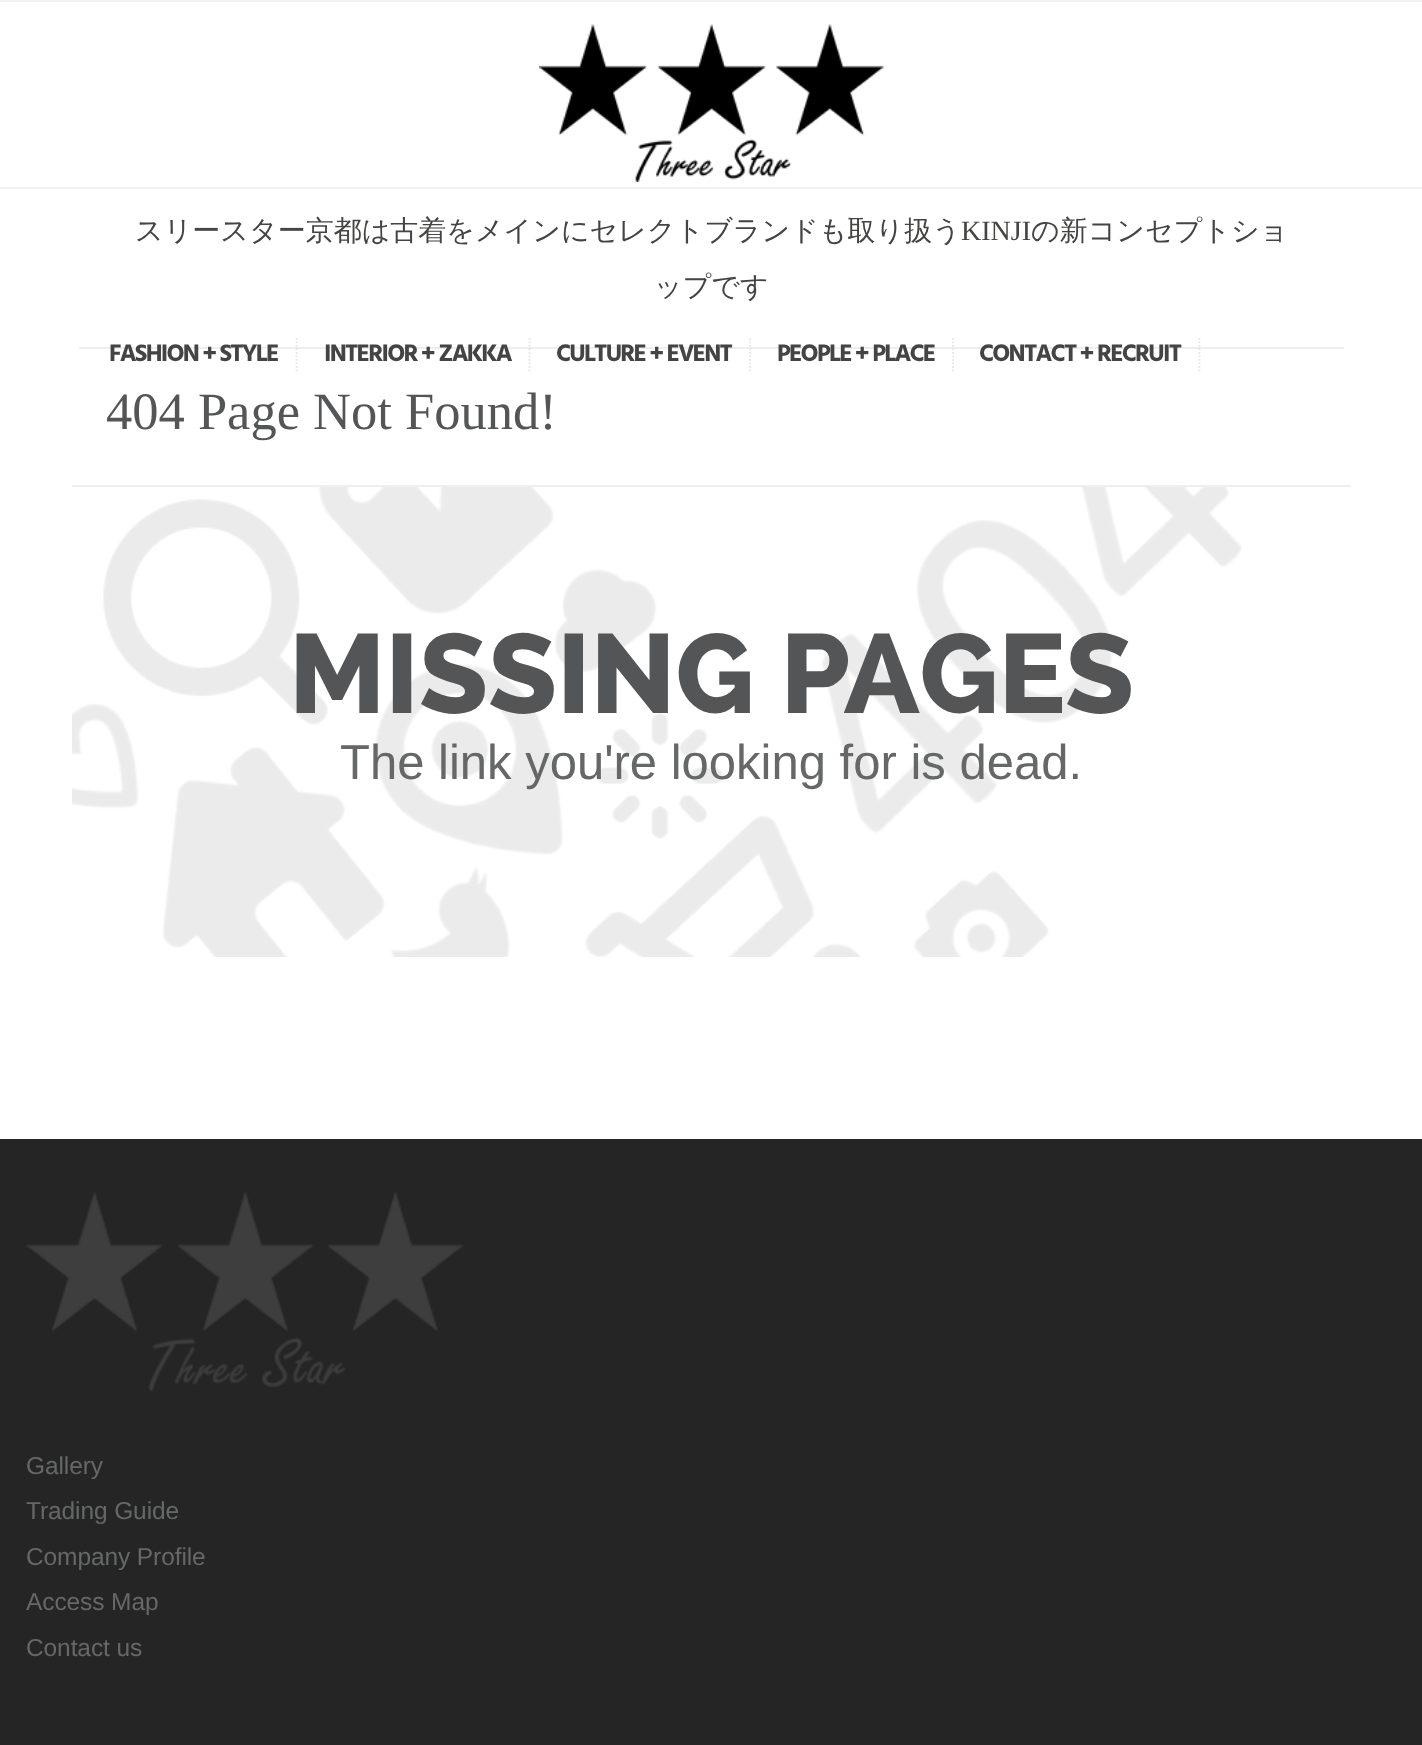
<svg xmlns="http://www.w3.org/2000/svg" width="1422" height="1745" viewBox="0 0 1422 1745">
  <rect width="100%" height="100%" fill="#ffffff"/>
  <rect x="0" y="0" width="1422" height="2" fill="#f2f2f2"/>
  <rect x="0" y="187" width="1422" height="2" fill="#f2f2f2"/>
  <image x="539" y="24" width="345" height="158" href="img1.png"/>
  <text x="135" y="240" font-family="WenQuanYi Zen Hei" font-size="28" font-weight="500" fill="#444442">スリースター京都は古着をメインにセレクトブランドも取り扱う</text>
  <text x="961" y="240" font-family="Liberation Serif" font-size="28" fill="#444442">KINJI</text>
  <text x="1031" y="240" font-family="WenQuanYi Zen Hei" font-size="28" font-weight="500" fill="#444442">の新コンセプトショ</text>
  <text x="654" y="296" font-family="WenQuanYi Zen Hei" font-size="28" font-weight="500" fill="#444442">ップです</text>
  <rect x="79" y="347" width="1265" height="2" fill="#eeeeee"/>
  <path d="M296.5 338V373" fill="none" stroke="#000000" stroke-opacity="0.1" stroke-width="1.8" stroke-dasharray="1.75 1.75"/>
  <text x="109" y="361" font-family="Hind" font-size="24.5" font-weight="bold" letter-spacing="-1.75" fill="#444442">FASHION + STYLE</text>
  <path d="M529.5 338V373" fill="none" stroke="#000000" stroke-opacity="0.1" stroke-width="1.8" stroke-dasharray="1.75 1.75"/>
  <text x="324" y="361" font-family="Hind" font-size="24.5" font-weight="bold" letter-spacing="-1.75" fill="#444442">INTERIOR + ZAKKA</text>
  <path d="M750 338V373" fill="none" stroke="#e6e6e6" stroke-width="1.8" stroke-dasharray="1.75 1.75"/>
  <text x="556" y="361" font-family="Hind" font-size="24.5" font-weight="bold" letter-spacing="-1.75" fill="#444442">CULTURE + EVENT</text>
  <path d="M953 338V373" fill="none" stroke="#e6e6e6" stroke-width="1.8" stroke-dasharray="1.75 1.75"/>
  <text x="777" y="361" font-family="Hind" font-size="24.5" font-weight="bold" letter-spacing="-1.75" fill="#444442">PEOPLE + PLACE</text>
  <path d="M1199.5 338V373" fill="none" stroke="#000000" stroke-opacity="0.1" stroke-width="1.8" stroke-dasharray="1.75 1.75"/>
  <text x="979" y="361" font-family="Hind" font-size="24.5" font-weight="bold" letter-spacing="-1.75" fill="#444442">CONTACT + RECRUIT</text>
  <text x="106" y="429" font-family="Liberation Serif" font-size="52.5" fill="#545556">404 Page Not Found!</text>
  <image x="72" y="487" width="1170" height="470" href="img2.png"/>
  <rect x="72" y="485" width="1279" height="2" fill="#eeeeee"/>
  <text x="289" y="713" font-family="Raleway" font-size="112" font-weight="800" fill="#545556">MISSING PAGES</text>
  <text x="340" y="779" font-family="Liberation Sans" font-size="49" fill="#666868">The link you're looking for is dead.</text>
  <rect x="0" y="1139" width="1422" height="606" fill="#252525"/>
  <image x="26" y="1192" width="438" height="200" href="img3.png"/>
  <text x="26" y="1474" font-family="Liberation Sans" font-size="24.5" letter-spacing="-0.1" fill="#666868">Gallery</text>
  <text x="26" y="1519" font-family="Liberation Sans" font-size="24.5" letter-spacing="-0.1" fill="#666868">Trading Guide</text>
  <text x="26" y="1565" font-family="Liberation Sans" font-size="24.5" letter-spacing="-0.1" fill="#666868">Company Profile</text>
  <text x="26" y="1610" font-family="Liberation Sans" font-size="24.5" letter-spacing="-0.1" fill="#666868">Access Map</text>
  <text x="26" y="1656" font-family="Liberation Sans" font-size="24.5" letter-spacing="-0.1" fill="#666868">Contact us</text>
</svg>
